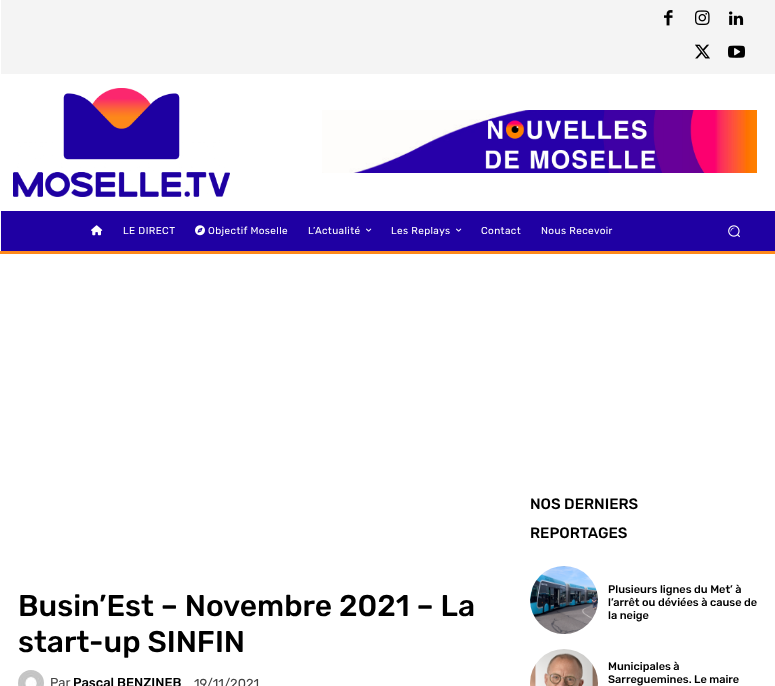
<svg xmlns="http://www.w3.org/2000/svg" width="775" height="686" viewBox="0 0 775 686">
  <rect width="100%" height="100%" fill="#ffffff"/>
  <rect x="1" y="0" width="774" height="74" fill="#f4f4f4"/>
  <image x="664" y="10" width="9" height="16" href="img1.png"/>
  <image x="695" y="10" width="15" height="15" href="img2.png"/>
  <image x="729" y="11" width="15" height="14" href="img3.png"/>
  <image x="695" y="44" width="15" height="15" href="img4.png"/>
  <image x="728" y="45" width="17" height="13" href="img5.png"/>
  <image x="13" y="88" width="217" height="109" href="img6.png"/>
  <image x="322" y="110" width="435" height="63" href="img7.png"/>
  <rect x="1" y="211" width="774" height="40" fill="#1f00a3"/>
  <image x="91" y="225" width="12" height="11" href="img8.png"/>
  <text x="123" y="234" font-family="Rubik" font-size="10" letter-spacing="0.4" fill="#ffffff">LE DIRECT</text>
  <image x="195" y="225" width="10" height="11" href="img9.png"/>
  <text x="208" y="234" font-family="Rubik" font-size="10" letter-spacing="0.4" fill="#ffffff">Objectif Moselle</text>
  <text x="308" y="234" font-family="Rubik" font-size="10" letter-spacing="0.4" fill="#ffffff">L’Actualité</text>
  <image x="366" y="228" width="6" height="4" href="img10.png"/>
  <text x="391" y="234" font-family="Rubik" font-size="10" letter-spacing="0.4" fill="#ffffff">Les Replays</text>
  <image x="456" y="228" width="6" height="4" href="img10.png"/>
  <text x="481" y="234" font-family="Rubik" font-size="10" letter-spacing="0.4" fill="#ffffff">Contact</text>
  <text x="541" y="234" font-family="Rubik" font-size="10" letter-spacing="0.4" fill="#ffffff">Nous Recevoir</text>
  <image x="728" y="225" width="12" height="13" href="img11.png"/>
  <rect x="0" y="251" width="775" height="3" fill="#fe891b"/>
  <text x="18" y="616" font-family="Rubik" font-size="30" font-weight="500" fill="#000000">Busin’Est – Novembre 2021 – La</text>
  <text x="18" y="652" font-family="Rubik" font-size="30" font-weight="500" fill="#000000">start-up SINFIN</text>
  <image x="18" y="670" width="26" height="16" href="img12.png"/>
  <text x="50" y="687" font-family="Rubik" font-size="13" fill="#444444">Par</text>
  <text x="73" y="687" font-family="Rubik" font-size="13" font-weight="500" fill="#000000">Pascal BENZINEB</text>
  <text x="194" y="688" font-family="Rubik" font-size="13" fill="#444444">19/11/2021</text>
  <text x="530" y="509" font-family="Rubik" font-size="15" font-weight="500" fill="#000000">NOS DERNIERS</text>
  <text x="530" y="538" font-family="Rubik" font-size="15" font-weight="500" fill="#000000">REPORTAGES</text>
  <image x="530" y="566" width="68" height="68" href="img13.png"/>
  <text x="608" y="593" font-family="Rubik" font-size="11" font-weight="500" fill="#000000">Plusieurs lignes du Met’ à</text>
  <text x="608" y="606" font-family="Rubik" font-size="11" font-weight="500" fill="#000000">l’arrêt ou déviées à cause de</text>
  <text x="608" y="619" font-family="Rubik" font-size="11" font-weight="500" fill="#000000">la neige</text>
  <image x="530" y="649" width="68" height="37" href="img14.png"/>
  <text x="608" y="670" font-family="Rubik" font-size="11" font-weight="500" fill="#000000">Municipales à</text>
  <text x="608" y="683" font-family="Rubik" font-size="11" font-weight="500" fill="#000000">Sarreguemines. Le maire</text>
</svg>
